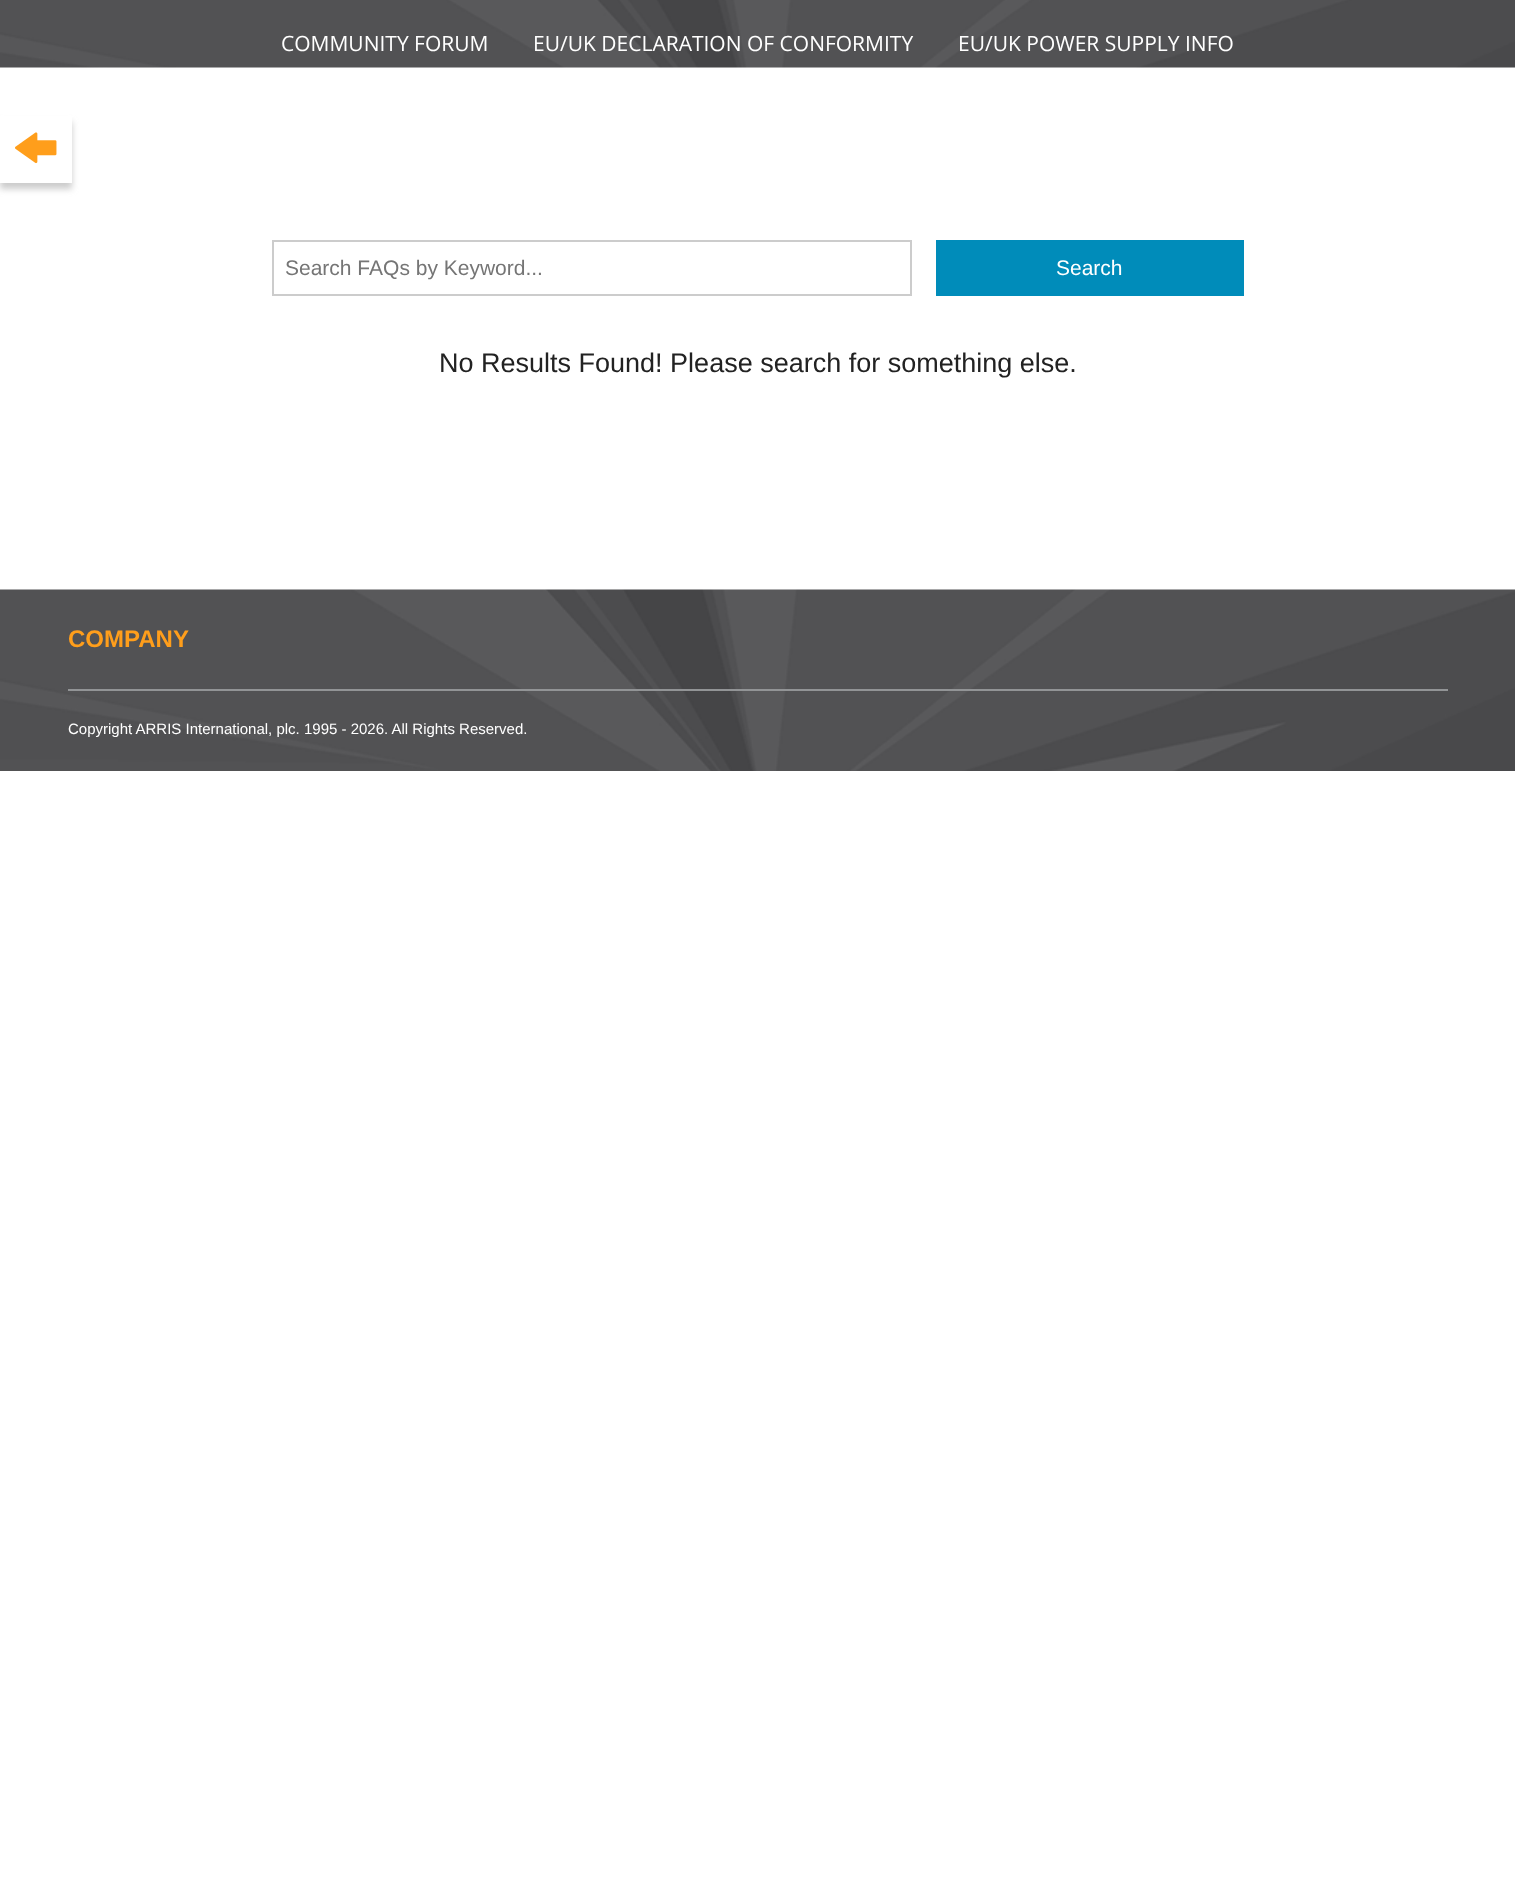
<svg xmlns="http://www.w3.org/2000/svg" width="1515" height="1892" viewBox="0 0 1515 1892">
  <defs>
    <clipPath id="clip1"><path d="M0 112H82V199H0ZM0 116H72V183H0Z" clip-rule="evenodd"/></clipPath>
    <filter id="blur1" x="-50%" y="-200%" width="200%" height="500%"><feGaussianBlur stdDeviation="3"/></filter>
  </defs>
  <rect width="100%" height="100%" fill="#ffffff"/>
  <image x="0" y="0" width="1515" height="68" href="img1.png"/>
  <text x="281" y="51" font-family="Open Sans" font-size="21" fill="#ffffff">COMMUNITY FORUM</text>
  <text x="533" y="51" font-family="Open Sans" font-size="21" fill="#ffffff">EU/UK DECLARATION OF CONFORMITY</text>
  <text x="958" y="51" font-family="Open Sans" font-size="21" fill="#ffffff">EU/UK POWER SUPPLY INFO</text>
  <g clip-path="url(#clip1)">
    <rect x="0" y="122" width="72" height="67" fill="#cccccc" filter="url(#blur1)"/>
  </g>
  <image x="15" y="132" width="42" height="32" href="img2.png"/>
  <rect x="273" y="241" width="638" height="54" fill="none" stroke="#cccccc" stroke-width="2"/>
  <text x="285" y="275" font-family="Liberation Sans" font-size="21" fill="#757575">Search FAQs by Keyword...</text>
  <rect x="936" y="240" width="308" height="56" fill="#008cba"/>
  <text x="1056" y="275" font-family="Liberation Sans" font-size="21" fill="#ffffff">Search</text>
  <text x="439" y="372" font-family="Liberation Sans" font-size="27" fill="#222222">No Results Found! Please search for something else.</text>
  <image x="0" y="589" width="1515" height="182" href="img3.png"/>
  <text x="68" y="647" font-family="Liberation Sans" font-size="24" font-weight="bold" fill="#ff9e1b">COMPANY</text>
  <rect x="68" y="689" width="1380" height="2" fill="#929496"/>
  <text x="68" y="734" font-family="Liberation Sans" font-size="15" fill="#ffffff">Copyright ARRIS International, plc. 1995 - 2026. All Rights Reserved.</text>
</svg>
